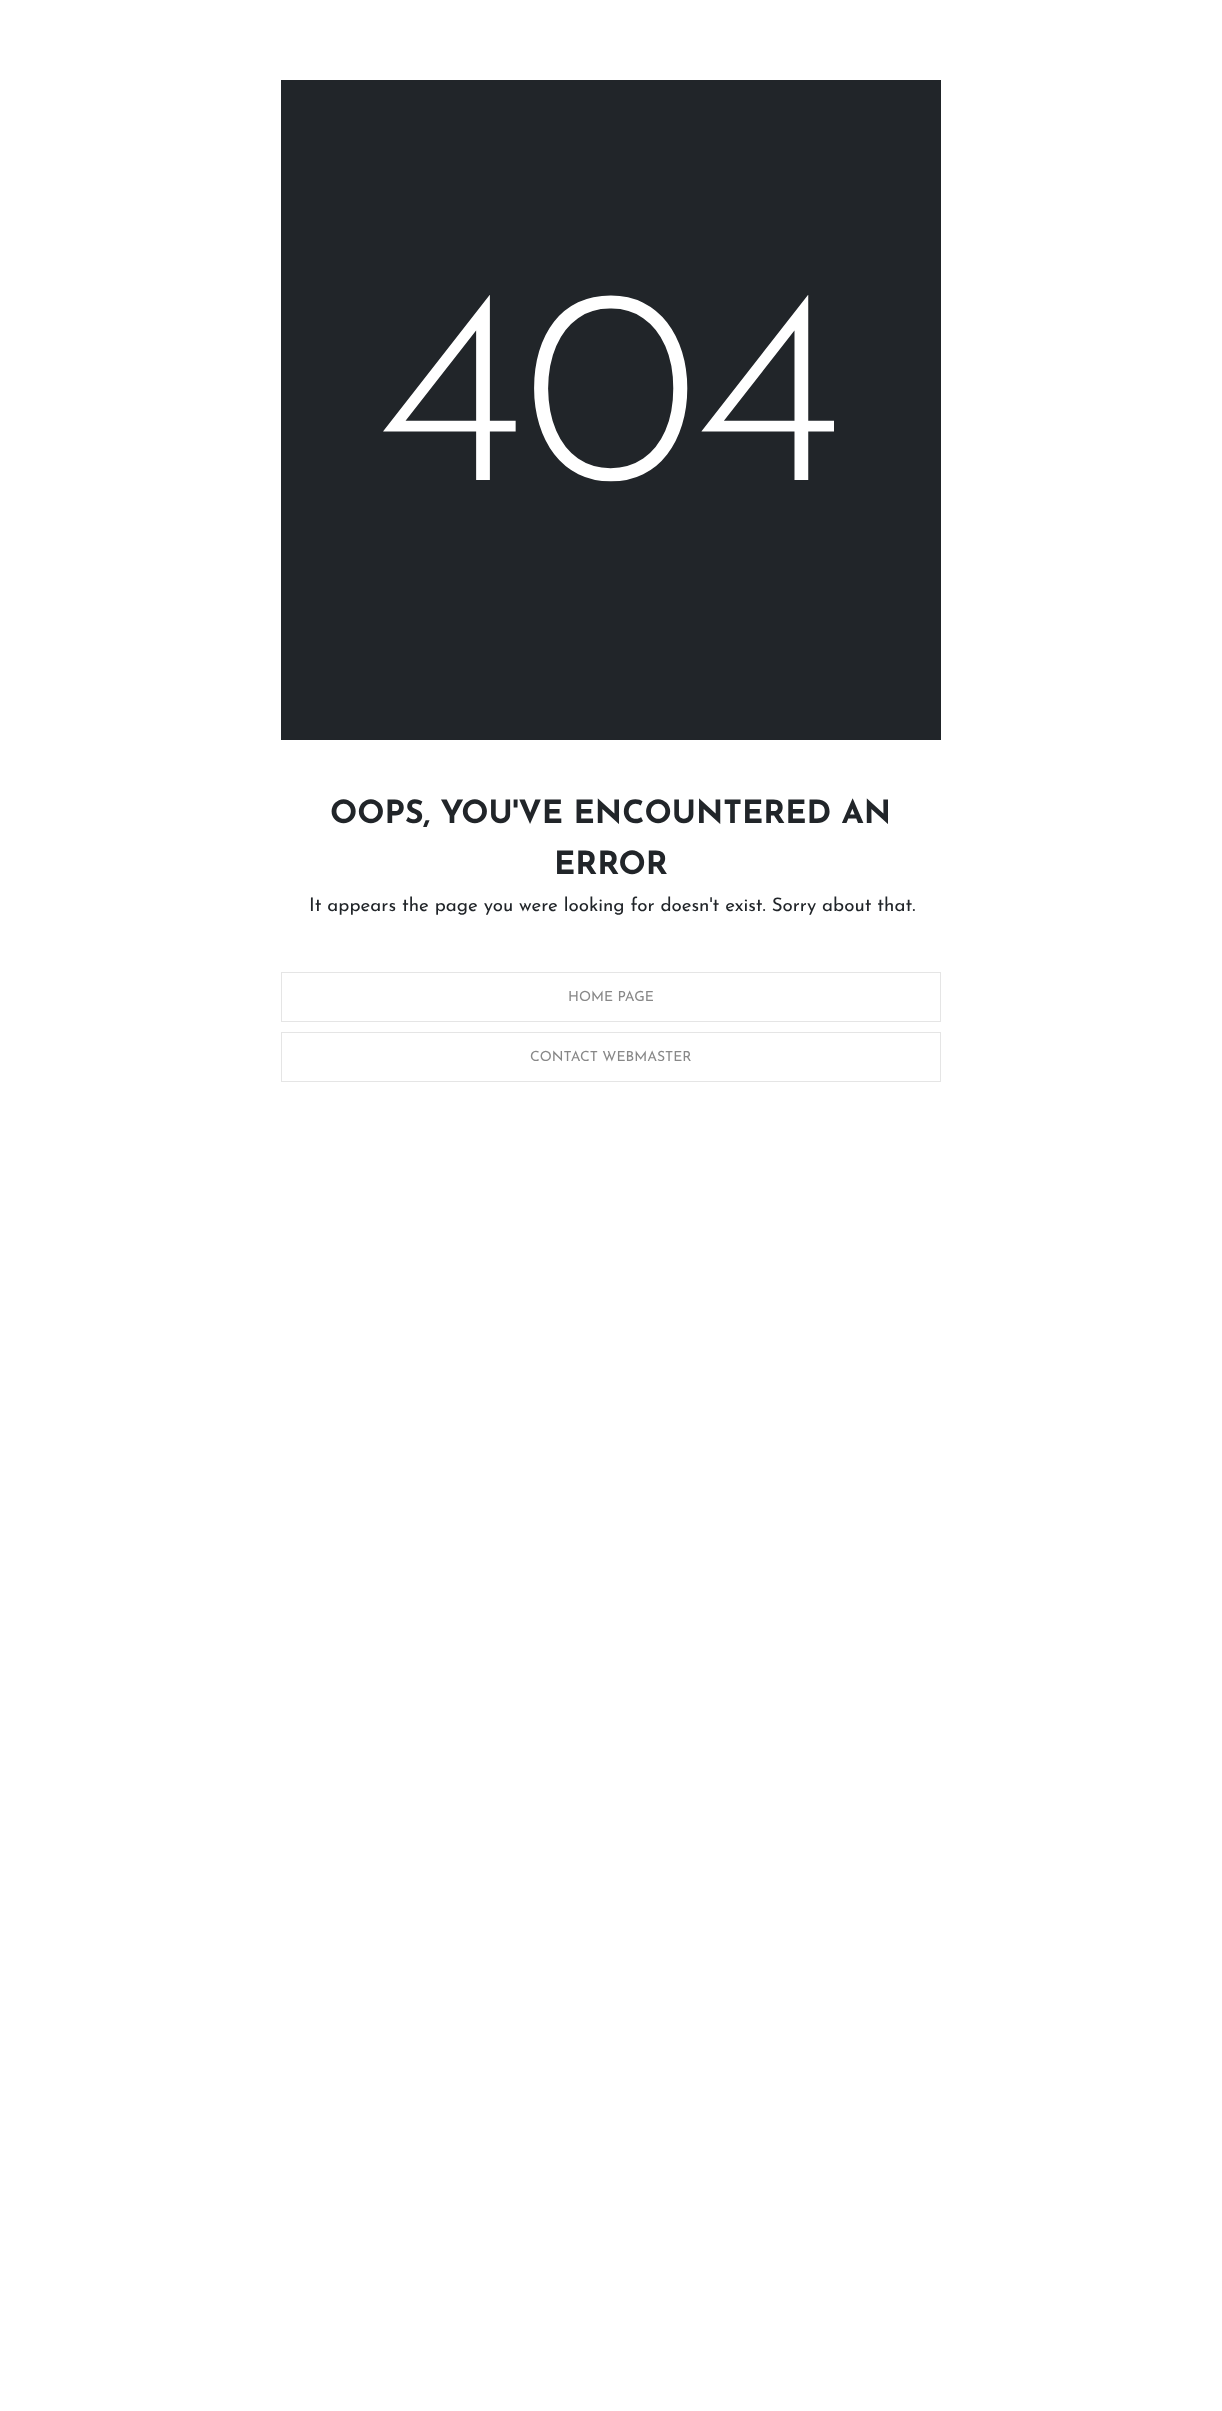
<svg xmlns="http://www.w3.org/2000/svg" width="1222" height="2411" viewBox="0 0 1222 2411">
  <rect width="100%" height="100%" fill="#ffffff"/>
  <rect x="281" y="80" width="660" height="660" fill="#212529"/>
  <text x="379" y="480" font-family="Josefin Sans" font-size="280" font-weight="300" fill="#ffffff">404</text>
  <text x="330" y="823" font-family="Josefin Sans" font-size="32" font-weight="bold" fill="#212529">OOPS, YOU'VE ENCOUNTERED AN</text>
  <text x="554" y="874" font-family="Josefin Sans" font-size="32" font-weight="bold" fill="#212529">ERROR</text>
  <text x="309" y="911" font-family="Josefin Sans" font-size="18.75" fill="#212529">It appears the page you were looking for doesn't exist. Sorry about that.</text>
  <rect x="281.5" y="972.5" width="659" height="49" fill="none" stroke="#e5e5e5"/>
  <text x="568" y="1001" font-family="Josefin Sans" font-size="14" fill="#888888">HOME PAGE</text>
  <rect x="281.5" y="1032.5" width="659" height="49" fill="none" stroke="#e5e5e5"/>
  <text x="530" y="1061" font-family="Josefin Sans" font-size="14" fill="#888888">CONTACT WEBMASTER</text>
</svg>
